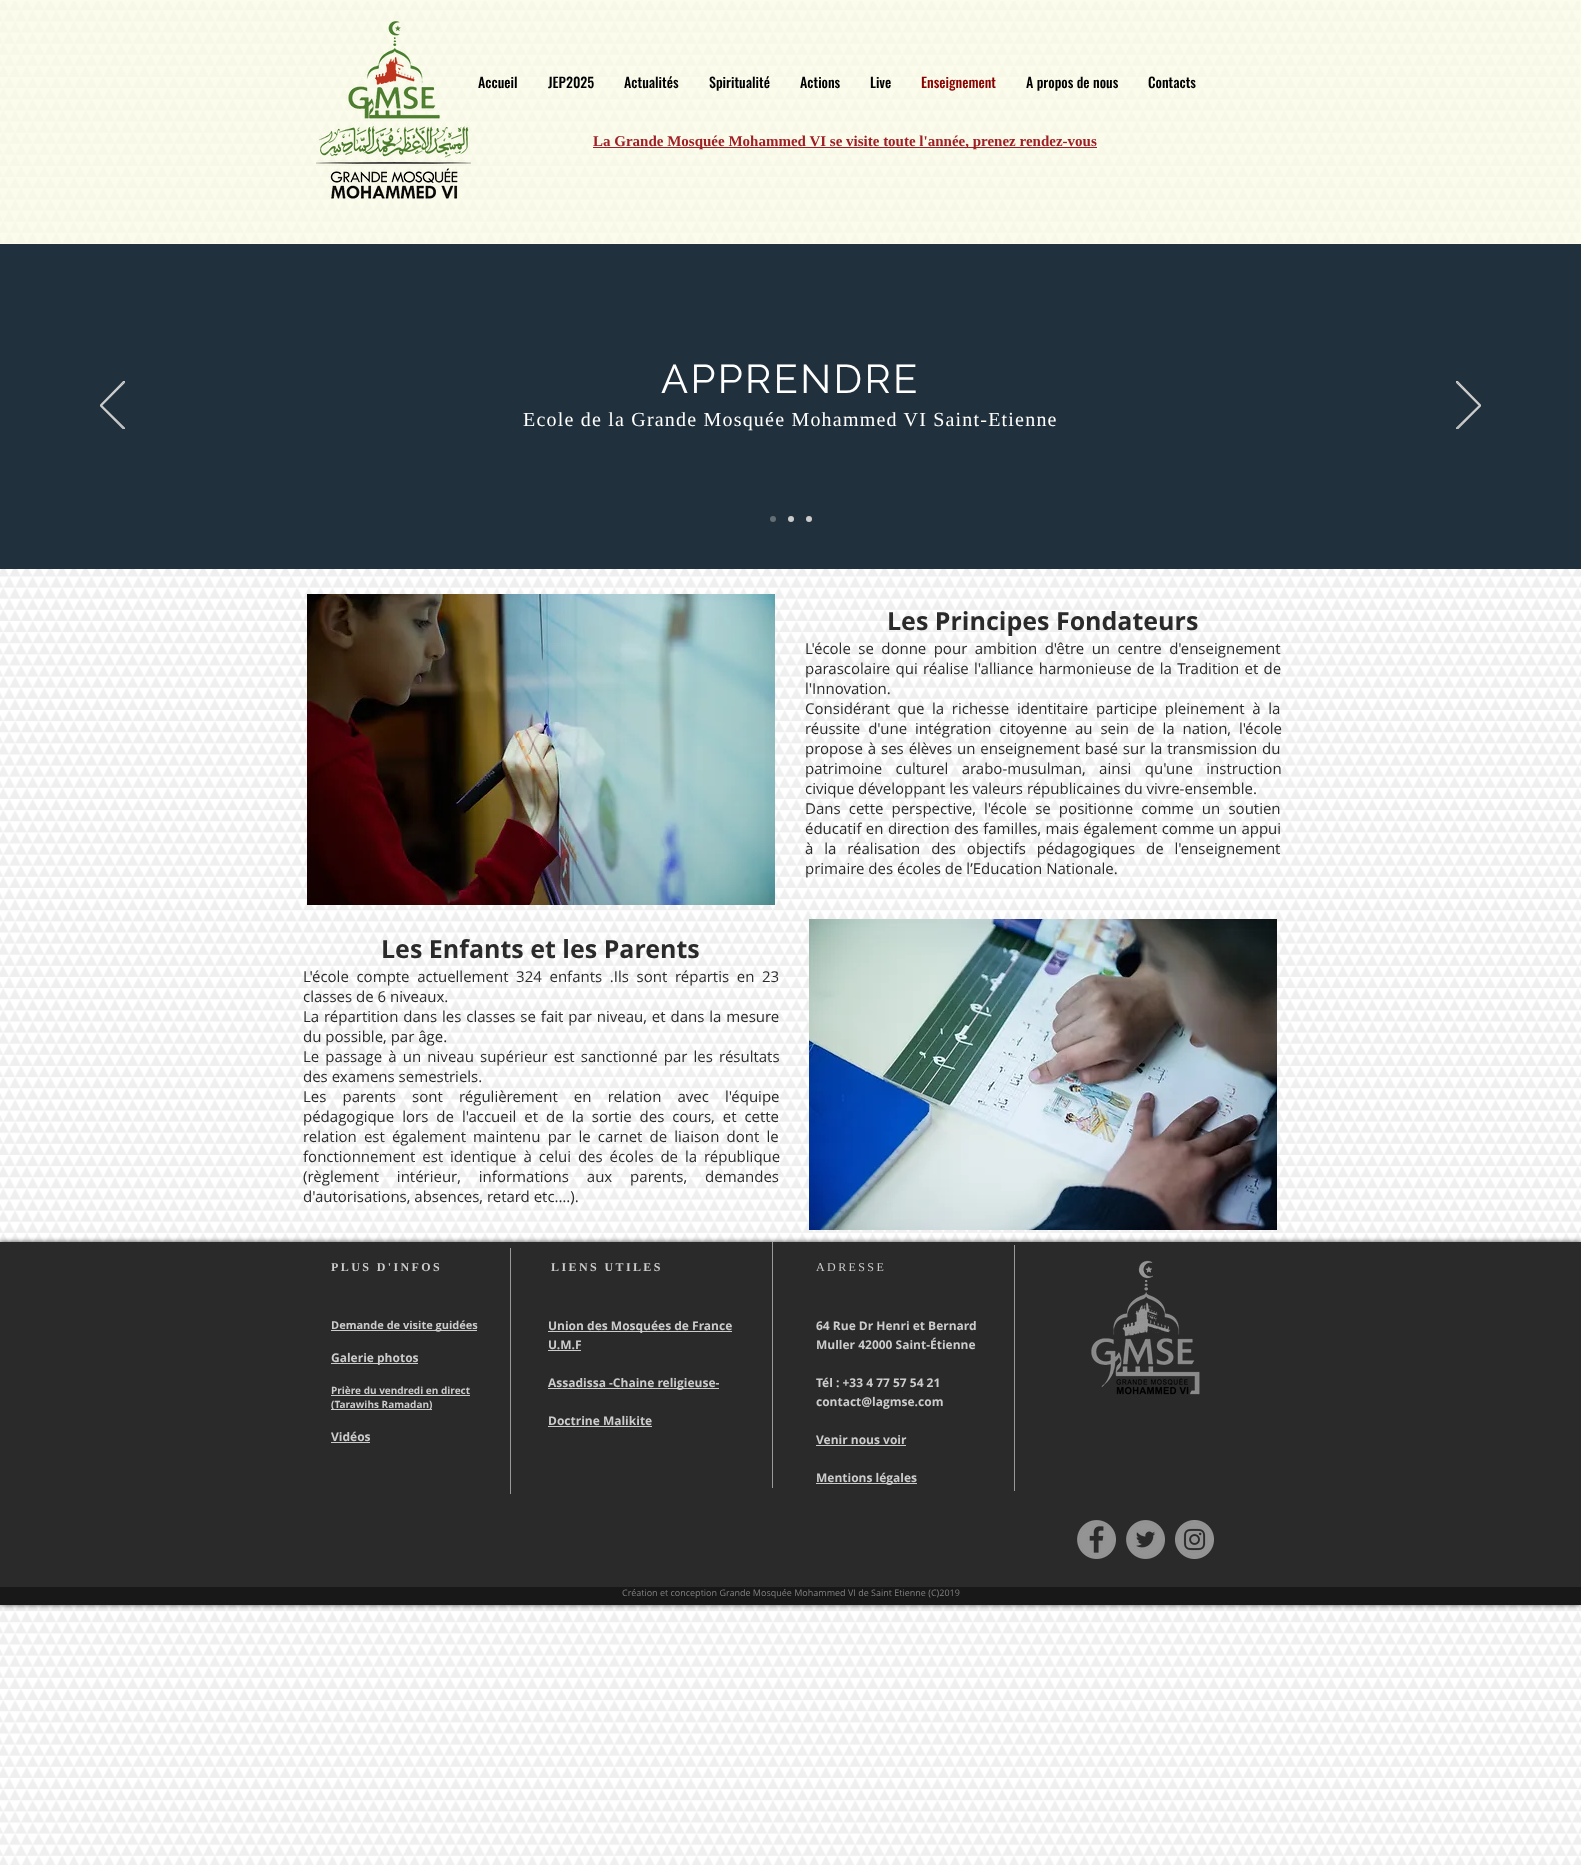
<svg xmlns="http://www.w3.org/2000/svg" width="1581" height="1865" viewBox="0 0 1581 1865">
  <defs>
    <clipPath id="clip1"><rect x="100" y="381" width="25" height="48"/></clipPath>
    <clipPath id="clip2"><rect x="1456" y="381" width="25" height="48"/></clipPath>
    <filter id="blur1" x="-50%" y="-200%" width="200%" height="500%"><feGaussianBlur stdDeviation="2.5"/></filter>
  </defs>
  <rect width="100%" height="100%" fill="#ffffff"/>
  <rect x="0" y="0" width="1581" height="244" fill="#fbfceb"/>
  <image x="0" y="1" width="1580" height="242" href="img1.png"/>
  <image x="316" y="21" width="155" height="178" href="img2.png"/>
  <text x="478" y="88" font-family="Oswald" font-size="14" font-weight="500" fill="#000000">Accueil</text>
  <text x="548" y="88" font-family="Oswald" font-size="14" font-weight="500" fill="#000000">JEP2025</text>
  <text x="624" y="88" font-family="Oswald" font-size="14" font-weight="500" fill="#000000">Actualités</text>
  <text x="709" y="88" font-family="Oswald" font-size="14" font-weight="500" fill="#000000">Spiritualité</text>
  <text x="800" y="88" font-family="Oswald" font-size="14" font-weight="500" fill="#000000">Actions</text>
  <text x="870" y="88" font-family="Oswald" font-size="14" font-weight="500" fill="#000000">Live</text>
  <text x="921" y="88" font-family="Oswald" font-size="14" font-weight="500" fill="#8b0000">Enseignement</text>
  <text x="1026" y="88" font-family="Oswald" font-size="14" font-weight="500" fill="#000000">A propos de nous</text>
  <text x="1148" y="88" font-family="Oswald" font-size="14" font-weight="500" fill="#000000">Contacts</text>
  <rect x="593" y="147" width="504" height="1" fill="#a01f24"/>
  <text x="593" y="146" font-family="Liberation Serif" font-size="15" font-weight="bold" fill="#a01f24">La Grande Mosquée Mohammed VI se visite toute l'année, prenez rendez-vous</text>
  <rect x="0" y="244" width="1581" height="325" fill="#20303c"/>
  <g clip-path="url(#clip1)">
    <path d="M124 429.5L100 405.5L124 381L125 382L101.5 405.5L125 428.5Z" fill="none" stroke="#cccccc" stroke-width="1.2"/>
  </g>
  <text x="661" y="393" font-family="Raleway" font-size="40" letter-spacing="2.4" fill="#ffffff">APPRENDRE</text>
  <text x="523" y="426" font-family="Liberation Serif" font-size="20" letter-spacing="1.2" fill="#ffffff">Ecole de la Grande Mosquée Mohammed VI Saint-Etienne</text>
  <g clip-path="url(#clip2)">
    <path d="M1457 429.5L1481 405.5L1457 381L1456 382L1479.5 405.5L1456 428.5Z" fill="none" stroke="#cccccc" stroke-width="1.2"/>
  </g>
  <circle cx="773" cy="519" r="3" fill="#636e77"/>
  <circle cx="791" cy="519" r="3" fill="#cccccc"/>
  <circle cx="809" cy="519" r="3" fill="#cccccc"/>
  <image x="0" y="569" width="1581" height="1296" href="img9.png"/>
  <image x="307" y="594" width="468" height="311" href="img3.png"/>
  <text x="887" y="630" font-family="Open Sans" font-size="25" font-weight="bold" fill="#2a2a2a">Les Principes Fondateurs</text>
  <text x="805" y="654" word-spacing="3.5" font-family="Open Sans" font-size="15" fill="#2a2a2a">L'école se donne pour ambition d'être un centre d'enseignement</text>
  <text x="805" y="674" word-spacing="1.4" font-family="Open Sans" font-size="15" fill="#2a2a2a">parascolaire qui réalise l'alliance harmonieuse de la Tradition et de</text>
  <text x="805" y="694" font-family="Open Sans" font-size="15" fill="#2a2a2a">l'Innovation.</text>
  <text x="805" y="714" word-spacing="3.75" font-family="Open Sans" font-size="15" fill="#2a2a2a">Considérant que la richesse identitaire participe pleinement à la</text>
  <text x="805" y="734" word-spacing="4" font-family="Open Sans" font-size="15" fill="#2a2a2a">réussite d'une intégration citoyenne au sein de la nation, l'école</text>
  <text x="805" y="754" word-spacing="1" font-family="Open Sans" font-size="15" fill="#2a2a2a">propose à ses élèves un enseignement basé sur la transmission du</text>
  <text x="805" y="774" word-spacing="9.5" font-family="Open Sans" font-size="15" fill="#2a2a2a">patrimoine culturel arabo-musulman, ainsi qu'une instruction</text>
  <text x="805" y="794" font-family="Open Sans" font-size="15" fill="#2a2a2a">civique développant les valeurs républicaines du vivre-ensemble.</text>
  <text x="805" y="814" word-spacing="4.25" font-family="Open Sans" font-size="15" fill="#2a2a2a">Dans cette perspective, l'école se positionne comme un soutien</text>
  <text x="805" y="834" word-spacing="0.5" font-family="Open Sans" font-size="15" fill="#2a2a2a">éducatif en direction des familles, mais également comme un appui</text>
  <text x="805" y="854" word-spacing="7" font-family="Open Sans" font-size="15" fill="#2a2a2a">à la réalisation des objectifs pédagogiques de l'enseignement</text>
  <text x="805" y="874" font-family="Open Sans" font-size="15" fill="#2a2a2a">primaire des écoles de l’Education Nationale.</text>
  <text x="381" y="958" font-family="Open Sans" font-size="25" font-weight="bold" fill="#2a2a2a">Les Enfants et les Parents</text>
  <text x="303" y="982" word-spacing="3.75" font-family="Open Sans" font-size="15" fill="#2a2a2a">L'école compte actuellement 324 enfants .Ils sont répartis en 23</text>
  <text x="303" y="1002" font-family="Open Sans" font-size="15" fill="#2a2a2a">classes de 6 niveaux.</text>
  <text x="303" y="1022" word-spacing="1" font-family="Open Sans" font-size="15" fill="#2a2a2a">La répartition dans les classes se fait par niveau, et dans la mesure</text>
  <text x="303" y="1042" font-family="Open Sans" font-size="15" fill="#2a2a2a">du possible, par âge.</text>
  <text x="303" y="1062" word-spacing="2.25" font-family="Open Sans" font-size="15" fill="#2a2a2a">Le passage à un niveau supérieur est sanctionné par les résultats</text>
  <text x="303" y="1082" font-family="Open Sans" font-size="15" fill="#2a2a2a">des examens semestriels.</text>
  <text x="303" y="1102" word-spacing="12.25" font-family="Open Sans" font-size="15" fill="#2a2a2a">Les parents sont régulièrement en relation avec l'équipe</text>
  <text x="303" y="1122" word-spacing="4.1" font-family="Open Sans" font-size="15" fill="#2a2a2a">pédagogique lors de l'accueil et de la sortie des cours, et cette</text>
  <text x="303" y="1142" word-spacing="3.25" font-family="Open Sans" font-size="15" fill="#2a2a2a">relation est également maintenu par le carnet de liaison dont le</text>
  <text x="303" y="1162" word-spacing="3" font-family="Open Sans" font-size="15" fill="#2a2a2a">fonctionnement est identique à celui des écoles de la république</text>
  <text x="303" y="1182" word-spacing="14" font-family="Open Sans" font-size="15" fill="#2a2a2a">(règlement intérieur, informations aux parents, demandes</text>
  <text x="303" y="1202" font-family="Open Sans" font-size="15" fill="#2a2a2a">d'autorisations, absences, retard etc.…).</text>
  <image x="809" y="919" width="468" height="311" href="img4.png"/>
  <rect x="0" y="1242" width="1581" height="363" fill="#000000" fill-opacity="0.7" filter="url(#blur1)"/>
  <rect x="0" y="1242" width="1581" height="345" fill="#2a2a2a"/>
  <text x="331" y="1271" font-family="Liberation Serif" font-size="12" font-weight="bold" letter-spacing="2.4" fill="#cccccc">PLUS D'INFOS</text>
  <rect x="510" y="1248" width="1" height="246" fill="#999999"/>
  <text x="551" y="1271" font-family="Liberation Serif" font-size="12" font-weight="bold" letter-spacing="2.4" fill="#cccccc">LIENS UTILES</text>
  <rect x="772" y="1242" width="1" height="246" fill="#999999"/>
  <text x="816" y="1271" font-family="Liberation Serif" font-size="12" letter-spacing="2.4" fill="#cccccc">ADRESSE</text>
  <rect x="1014" y="1245" width="1" height="246" fill="#999999"/>
  <image x="1091" y="1260" width="109" height="135" href="img5.png"/>
  <rect x="331" y="1330" width="146" height="1" fill="#cccccc"/>
  <text x="331" y="1329" font-family="Open Sans" font-size="11" font-weight="bold" fill="#cccccc">Demande de visite guidées</text>
  <rect x="331" y="1363" width="87" height="1" fill="#cccccc"/>
  <text x="331" y="1362" font-family="Open Sans" font-size="12" font-weight="bold" fill="#cccccc">Galerie photos</text>
  <text x="331" y="1394" font-family="Open Sans" font-size="10" font-weight="bold" fill="#cccccc">Prière du vendredi en direct</text>
  <rect x="331" y="1395" width="139" height="1" fill="#cccccc"/>
  <rect x="331" y="1409" width="101" height="1" fill="#cccccc"/>
  <text x="331" y="1408" font-family="Open Sans" font-size="10" font-weight="bold" fill="#cccccc">(Tarawihs Ramadan)</text>
  <text x="331" y="1441" font-family="Open Sans" font-size="12" font-weight="bold" fill="#cccccc">Vidéos</text>
  <rect x="331" y="1442" width="39" height="1" fill="#cccccc"/>
  <rect x="548" y="1331" width="184" height="1" fill="#cccccc"/>
  <text x="548" y="1330" font-family="Open Sans" font-size="12" font-weight="bold" fill="#cccccc">Union des Mosquées de France</text>
  <text x="548" y="1349" font-family="Open Sans" font-size="12" font-weight="bold" fill="#cccccc">U.M.F</text>
  <rect x="548" y="1350" width="33" height="1" fill="#cccccc"/>
  <rect x="548" y="1388" width="171" height="1" fill="#cccccc"/>
  <text x="548" y="1387" font-family="Open Sans" font-size="12" font-weight="bold" fill="#cccccc">Assadissa -Chaine religieuse-</text>
  <text x="548" y="1425" font-family="Open Sans" font-size="12" font-weight="bold" fill="#cccccc">Doctrine Malikite</text>
  <rect x="548" y="1426" width="104" height="1" fill="#cccccc"/>
  <text x="816" y="1330" font-family="Open Sans" font-size="12" font-weight="bold" fill="#cccccc">64 Rue Dr Henri et Bernard</text>
  <text x="816" y="1349" font-family="Open Sans" font-size="12" font-weight="bold" fill="#cccccc">Muller 42000 Saint-Étienne</text>
  <text x="816" y="1387" font-family="Open Sans" font-size="12" font-weight="bold" fill="#cccccc">Tél : +33 4 77 57 54 21</text>
  <text x="816" y="1406" font-family="Open Sans" font-size="12" font-weight="bold" fill="#cccccc">contact@lagmse.com</text>
  <text x="816" y="1444" font-family="Open Sans" font-size="12" font-weight="bold" fill="#cccccc">Venir nous voir</text>
  <rect x="816" y="1445" width="90" height="1" fill="#cccccc"/>
  <rect x="816" y="1483" width="101" height="1" fill="#cccccc"/>
  <text x="816" y="1482" font-family="Open Sans" font-size="12" font-weight="bold" fill="#cccccc">Mentions légales</text>
  <image x="1077" y="1520" width="39" height="39" href="img6.png"/>
  <image x="1126" y="1520" width="39" height="39" href="img7.png"/>
  <image x="1175" y="1520" width="39" height="39" href="img8.png"/>
  <rect x="0" y="1587" width="1581" height="18" fill="#181818"/>
  <text x="622" y="1596" font-family="Open Sans" font-size="9" fill="#808080">Création et conception Grande Mosquée Mohammed VI de Saint Etienne (C)2019</text>
</svg>
